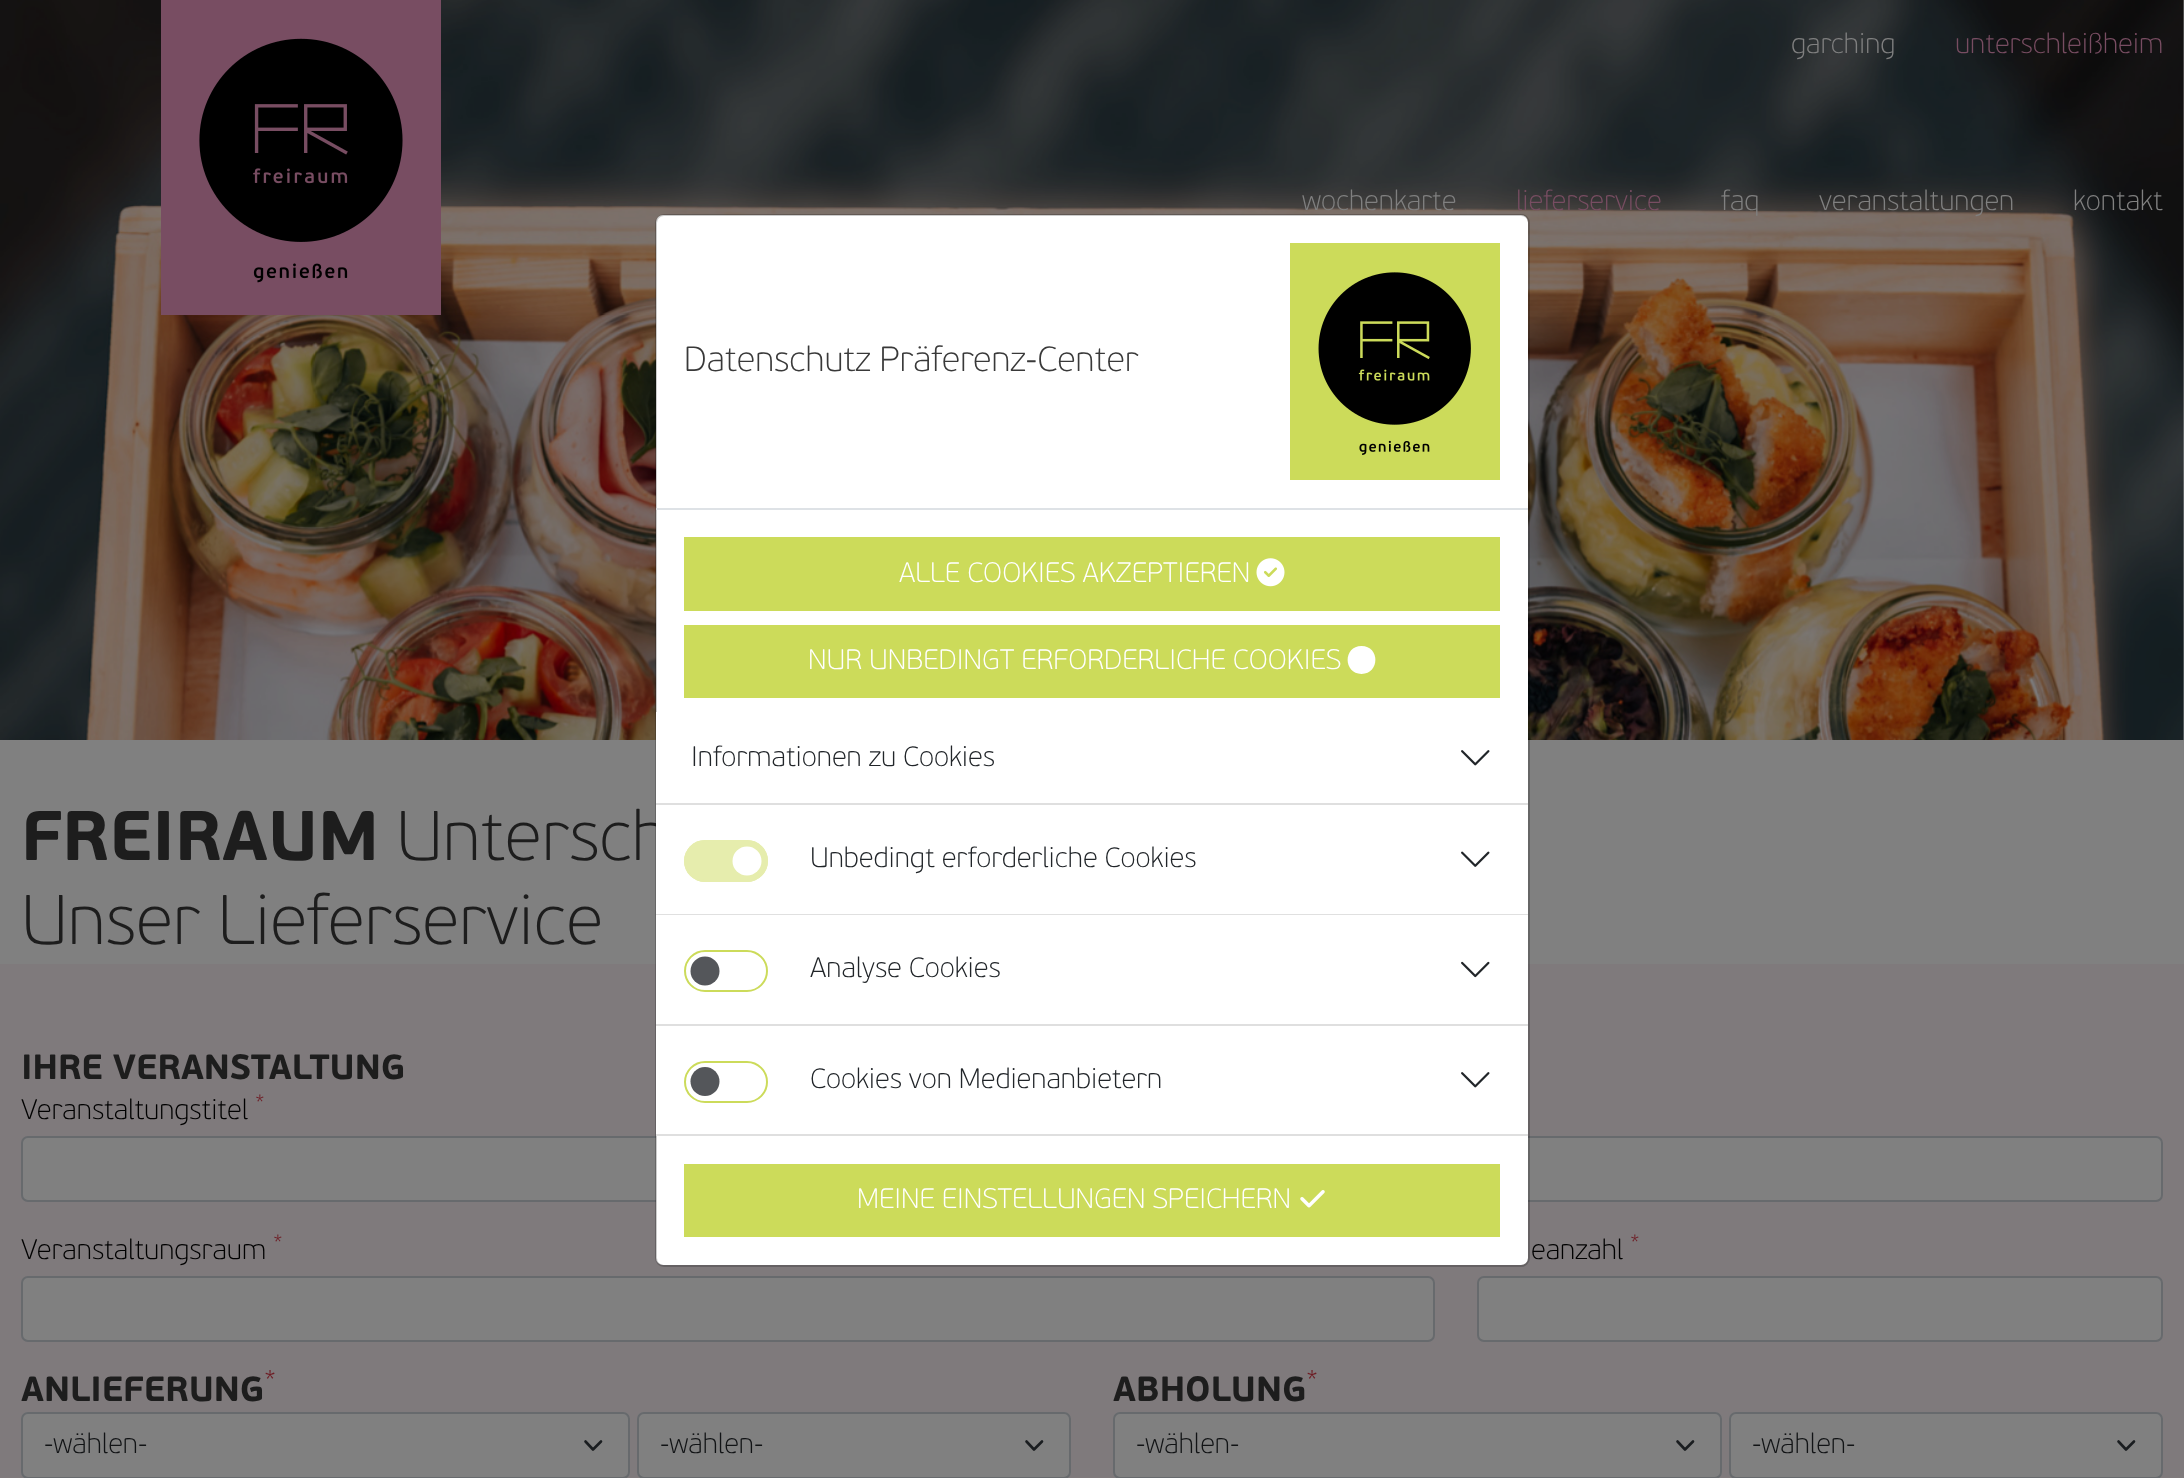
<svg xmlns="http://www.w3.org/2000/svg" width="2184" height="1478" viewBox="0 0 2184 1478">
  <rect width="100%" height="100%" fill="#ffffff"/>
  <image x="0" y="0" width="2184" height="740" href="img1.png"/>
  <rect x="161" y="0" width="280" height="315" fill="#784d62"/>
  <image x="199" y="38" width="204" height="245" href="img2.png"/>
  <text x="1791" y="53" font-family="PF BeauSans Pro" font-size="28" font-weight="100" fill="#808080">garching</text>
  <text x="1955" y="53" font-family="PF BeauSans Pro" font-size="28" font-weight="100" fill="#784d62">unterschleißheim</text>
  <text x="1302" y="210" font-family="PF BeauSans Pro" font-size="28" font-weight="100" fill="#808080">wochenkarte</text>
  <text x="1516" y="210" font-family="PF BeauSans Pro" font-size="28" font-weight="100" fill="#784d62">lieferservice</text>
  <text x="1721" y="210" font-family="PF BeauSans Pro" font-size="28" font-weight="100" fill="#808080">faq</text>
  <text x="1819" y="210" font-family="PF BeauSans Pro" font-size="28" font-weight="100" fill="#808080">veranstaltungen</text>
  <text x="2073" y="210" font-family="PF BeauSans Pro" font-size="28" font-weight="100" fill="#808080">kontakt</text>
  <rect x="0" y="740" width="2184" height="224" fill="#808080"/>
  <text x="21" y="860" font-family="PF BeauSans Pro" font-size="70" font-weight="bold" fill="#1d1d1d">FREIRAUM</text>
  <text x="396" y="860" font-family="PF BeauSans Pro" font-size="70" font-weight="100" fill="#1d1d1d">Untersch</text>
  <text x="21" y="944" font-family="PF BeauSans Pro" font-size="70" font-weight="100" fill="#1d1d1d">Unser Lieferservice</text>
  <rect x="0" y="964" width="2184" height="514" fill="#7f7a7c"/>
  <text x="21" y="1079" font-family="PF BeauSans Pro" font-size="35" font-weight="bold" fill="#1d1d1d">IHRE VERANSTALTUNG</text>
  <text x="21" y="1119" font-family="PF BeauSans Pro" font-size="28" font-weight="100" fill="#000000">Veranstaltungstitel</text>
  <text x="255" y="1109" font-family="PF BeauSans Pro" font-size="21" font-weight="100" fill="#6e1b23">*</text>
  <rect x="22" y="1137" width="684" height="64" rx="6" fill="#808080" stroke="#676a6d" stroke-width="2"/>
  <rect x="750" y="1137" width="1412" height="64" rx="6" fill="#808080" stroke="#676a6d" stroke-width="2"/>
  <text x="21" y="1259" font-family="PF BeauSans Pro" font-size="28" font-weight="100" fill="#000000">Veranstaltungsraum</text>
  <text x="273" y="1249" font-family="PF BeauSans Pro" font-size="21" font-weight="100" fill="#6e1b23">*</text>
  <rect x="22" y="1277" width="1412" height="64" rx="6" fill="#808080" stroke="#676a6d" stroke-width="2"/>
  <text x="1531" y="1259" font-family="PF BeauSans Pro" font-size="28" font-weight="100" fill="#000000">eanzahl</text>
  <text x="1630" y="1249" font-family="PF BeauSans Pro" font-size="21" font-weight="100" fill="#6e1b23">*</text>
  <rect x="1478" y="1277" width="684" height="64" rx="6" fill="#808080" stroke="#676a6d" stroke-width="2"/>
  <text x="264" y="1388" font-family="PF BeauSans Pro" font-size="26" font-weight="100" fill="#6e1b23">*</text>
  <text x="21" y="1401" font-family="PF BeauSans Pro" font-size="35" font-weight="bold" fill="#1d1d1d">ANLIEFERUNG</text>
  <rect x="21" y="1412" width="609" height="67" rx="7" fill="#808080"/>
  <path d="M585.5 1441.5L593 1449.5L601 1441.5" fill="none" stroke="#1a1d20" stroke-width="2.6" stroke-linecap="round" stroke-linejoin="round"/>
  <rect x="22" y="1413" width="607" height="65" rx="6" fill="none" stroke="#676a6d" stroke-width="2"/>
  <text x="44" y="1453" font-family="PF BeauSans Pro" font-size="28" font-weight="100" fill="#111315">-wählen-</text>
  <rect x="637" y="1412" width="434" height="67" rx="7" fill="#808080"/>
  <path d="M1026.5 1441.5L1034 1449.5L1042 1441.5" fill="none" stroke="#1a1d20" stroke-width="2.6" stroke-linecap="round" stroke-linejoin="round"/>
  <rect x="638" y="1413" width="432" height="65" rx="6" fill="none" stroke="#676a6d" stroke-width="2"/>
  <text x="660" y="1453" font-family="PF BeauSans Pro" font-size="28" font-weight="100" fill="#111315">-wählen-</text>
  <text x="1306" y="1388" font-family="PF BeauSans Pro" font-size="26" font-weight="100" fill="#6e1b23">*</text>
  <text x="1113" y="1401" font-family="PF BeauSans Pro" font-size="35" font-weight="bold" fill="#1d1d1d">ABHOLUNG</text>
  <rect x="1113" y="1412" width="609" height="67" rx="7" fill="#808080"/>
  <path d="M1677.5 1441.5L1685 1449.5L1693 1441.5" fill="none" stroke="#1a1d20" stroke-width="2.6" stroke-linecap="round" stroke-linejoin="round"/>
  <rect x="1114" y="1413" width="607" height="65" rx="6" fill="none" stroke="#676a6d" stroke-width="2"/>
  <text x="1136" y="1453" font-family="PF BeauSans Pro" font-size="28" font-weight="100" fill="#111315">-wählen-</text>
  <rect x="1729" y="1412" width="434" height="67" rx="7" fill="#808080"/>
  <path d="M2118.5 1441.5L2126 1449.5L2134 1441.5" fill="none" stroke="#1a1d20" stroke-width="2.6" stroke-linecap="round" stroke-linejoin="round"/>
  <rect x="1730" y="1413" width="432" height="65" rx="6" fill="none" stroke="#676a6d" stroke-width="2"/>
  <text x="1752" y="1453" font-family="PF BeauSans Pro" font-size="28" font-weight="100" fill="#111315">-wählen-</text>
  <rect x="656" y="215" width="872" height="1050" rx="7" fill="#ffffff"/>
  <rect x="656" y="215" width="873" height="1051" rx="8" fill="none" stroke="#000000" stroke-opacity="0.2" stroke-width="2"/>
  <rect x="656" y="508" width="872" height="2" fill="#dee2e6"/>
  <text x="684" y="371" font-family="PF BeauSans Pro" font-size="35" font-weight="100" fill="#393939">Datenschutz Präferenz-Center</text>
  <rect x="1290" y="243" width="210" height="237" fill="#ccdb5a"/>
  <image x="1318" y="272" width="153" height="183" href="img3.png"/>
  <rect x="684" y="537" width="816" height="74" fill="#ccdb5a"/>
  <text x="899" y="582" font-family="PF BeauSans Pro" font-size="28" font-weight="100" fill="#ffffff">ALLE COOKIES AKZEPTIEREN</text>
  <image x="1256" y="558" width="29" height="29" href="img4.png"/>
  <rect x="684" y="625" width="816" height="73" fill="#ccdb5a"/>
  <text x="808" y="669" font-family="PF BeauSans Pro" font-size="28" font-weight="100" fill="#ffffff">NUR UNBEDINGT ERFORDERLICHE COOKIES</text>
  <path d="M1361.5 674C1380 673.5 1380 646 1361.5 646C1343 646 1343 673.5 1361.5 674Z" fill="#ffffff"/>
  <rect x="656" y="712" width="1" height="91" fill="#ffffff"/>
  <rect x="656" y="803" width="872" height="2" fill="#dfdfdf"/>
  <text x="691" y="766" font-family="PF BeauSans Pro" font-size="28" font-weight="100" fill="#212529">Informationen zu Cookies</text>
  <image x="1461" y="750" width="29" height="16" href="img5.png"/>
  <rect x="656" y="805" width="1" height="219" fill="#ffffff"/>
  <rect x="656" y="914" width="872" height="1" fill="#000000" fill-opacity="0.12"/>
  <rect x="684" y="840" width="84" height="42" rx="21" fill="#e6edad"/>
  <circle cx="747" cy="861" r="14.5" fill="#ffffff"/>
  <rect x="685" y="841" width="82" height="40" rx="20" fill="none" stroke="#e6edad" stroke-width="2"/>
  <text x="810" y="867" font-family="PF BeauSans Pro" font-size="28" font-weight="100" fill="#212529">Unbedingt erforderliche Cookies</text>
  <image x="1461" y="851" width="29" height="16" href="img6.png"/>
  <rect x="656" y="1024" width="872" height="2" fill="#dfdfdf"/>
  <circle cx="705" cy="971" r="14.5" fill="#54565a"/>
  <rect x="685" y="951" width="82" height="40" rx="20" fill="none" stroke="#ccdb5a" stroke-width="2"/>
  <text x="810" y="977" font-family="PF BeauSans Pro" font-size="28" font-weight="100" fill="#212529">Analyse Cookies</text>
  <image x="1461" y="961" width="29" height="17" href="img7.png"/>
  <rect x="656" y="1026" width="1" height="108" fill="#ffffff"/>
  <rect x="656" y="1134" width="872" height="2" fill="#dfdfdf"/>
  <circle cx="705" cy="1081.5" r="14.5" fill="#54565a"/>
  <rect x="685" y="1062" width="82" height="40" rx="20" fill="none" stroke="#ccdb5a" stroke-width="2"/>
  <text x="810" y="1088" font-family="PF BeauSans Pro" font-size="28" font-weight="100" fill="#212529">Cookies von Medienanbietern</text>
  <image x="1461" y="1072" width="29" height="16" href="img5.png"/>
  <rect x="684" y="1164" width="816" height="73" fill="#ccdb5a"/>
  <text x="857" y="1208" font-family="PF BeauSans Pro" font-size="28" font-weight="100" fill="#ffffff">MEINE EINSTELLUNGEN SPEICHERN</text>
  <image x="1300" y="1190" width="25" height="18" href="img8.png"/>
</svg>
